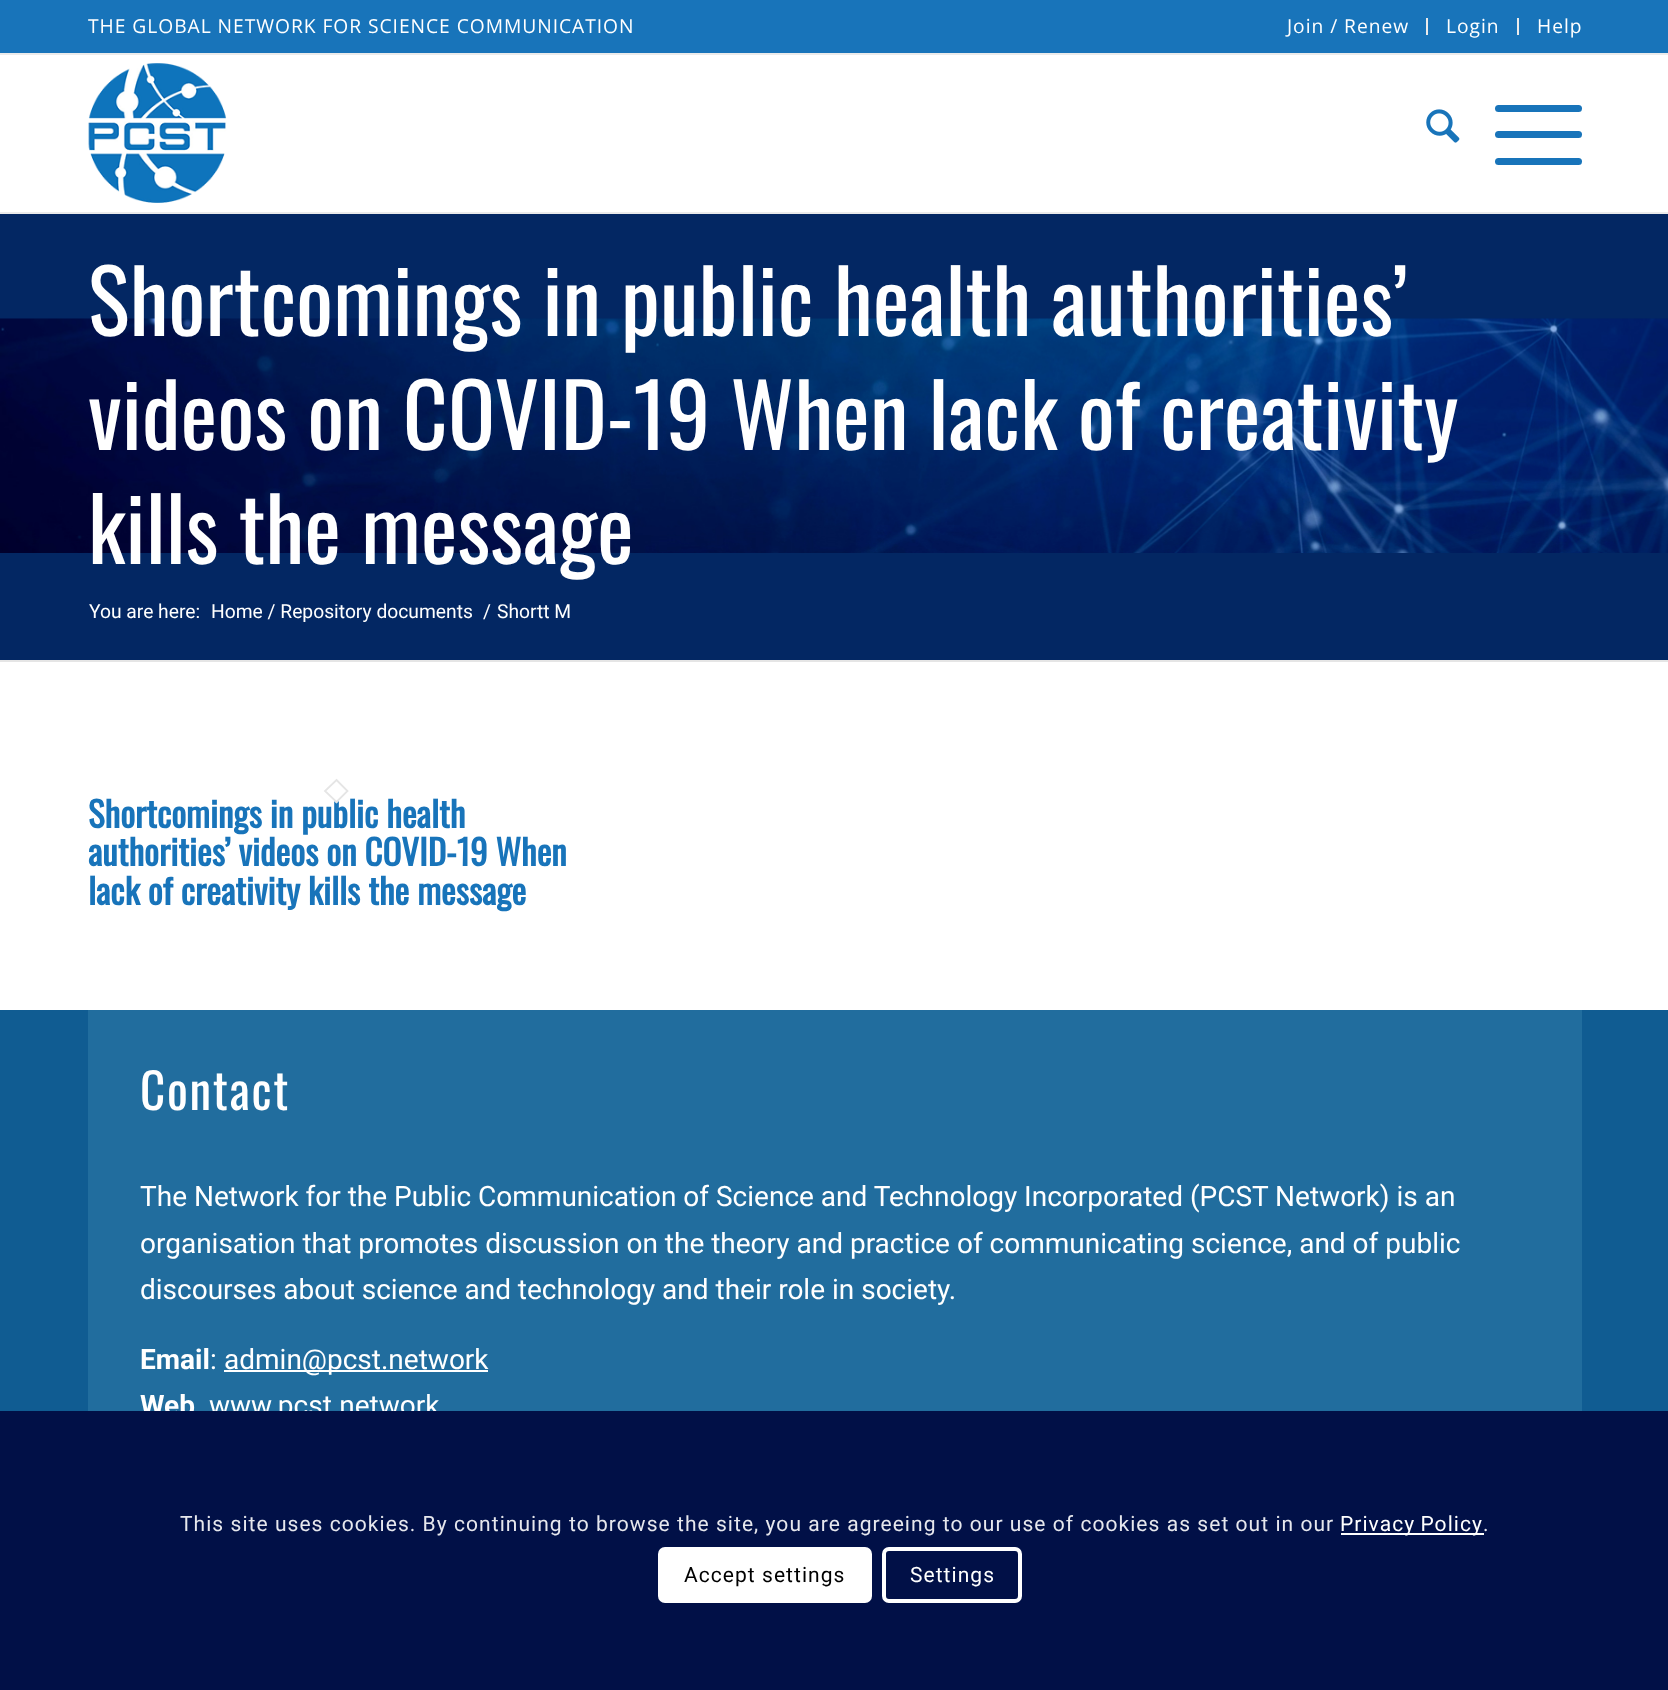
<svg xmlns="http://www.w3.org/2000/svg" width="1668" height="1690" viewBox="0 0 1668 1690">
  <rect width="100%" height="100%" fill="#ffffff"/>
  <rect x="0" y="0" width="1668" height="53" fill="#1874ba"/>
  <rect x="0" y="53" width="1668" height="2" fill="#ebebeb"/>
  <text x="88" y="33" font-family="Open Sans" font-size="19.25" letter-spacing="0.95" fill="#ffffff">THE GLOBAL NETWORK FOR SCIENCE COMMUNICATION</text>
  <rect x="1426" y="18" width="2" height="17" fill="#ebebeb"/>
  <text x="1287" y="33" font-family="Open Sans" font-size="19.25" letter-spacing="0.95" fill="#ffffff">Join / Renew</text>
  <rect x="1517" y="18" width="2" height="17" fill="#ebebeb"/>
  <text x="1446" y="33" font-family="Open Sans" font-size="19.25" letter-spacing="0.95" fill="#ffffff">Login</text>
  <text x="1537" y="33" font-family="Open Sans" font-size="19.25" letter-spacing="0.95" fill="#ffffff">Help</text>
  <rect x="0" y="212" width="1668" height="2" fill="#ebebeb"/>
  <image x="88" y="63" width="139" height="140" href="img1.png"/>
  <image x="1426" y="109" width="34" height="34" href="img2.png"/>
  <rect x="1495" y="131" width="87" height="7" rx="3.5" fill="#1874ba"/>
  <rect x="1495" y="105" width="87" height="7" rx="3.5" fill="#1874ba"/>
  <rect x="1495" y="158" width="87" height="7" rx="3.5" fill="#1874ba"/>
  <rect x="0" y="214" width="1668" height="446" fill="#032763"/>
  <image x="0" y="318" width="1668" height="235" href="img3.png"/>
  <text x="88" y="336" font-family="Oswald" font-size="87.5" fill="#ffffff">Shortcomings in public health authorities’</text>
  <text x="88" y="450" font-family="Oswald" font-size="87.5" fill="#ffffff">videos on COVID-19 When lack of creativity</text>
  <text x="88" y="564" font-family="Oswald" font-size="87.5" fill="#ffffff">kills the message</text>
  <text x="89" y="618" font-family="Roboto" font-size="19.25" fill="#ffffff">You are here:</text>
  <text x="211" y="618" font-family="Roboto" font-size="19.25" fill="#ffffff">Home / Repository documents</text>
  <text x="483" y="618" font-family="Roboto" font-size="19.25" fill="#ffffff">/</text>
  <text x="497" y="618" font-family="Roboto" font-size="19.25" fill="#ffffff">Shortt M</text>
  <rect x="0" y="660" width="1668" height="2" fill="#e5e5e5"/>
  <text x="88" y="828" font-family="Oswald" font-size="35" font-weight="bold" fill="#1874ba">Shortcomings in public health</text>
  <path d="M336.5 778.5L348.5 791L336.5 803.5L324 791Z" fill="#ffffff"/>
  <path d="M336.5 780L347.5 791L336.5 802L325 791Z" fill="none" stroke="#e5e5e5" stroke-width="1.8"/>
  <text x="88" y="866" font-family="Oswald" font-size="35" font-weight="bold" fill="#1874ba">authorities’ videos on COVID-19 When</text>
  <text x="88" y="905" font-family="Oswald" font-size="35" font-weight="bold" fill="#1874ba">lack of creativity kills the message</text>
  <rect x="0" y="1010" width="1668" height="401" fill="#105c92"/>
  <rect x="88" y="1010" width="1494" height="401" fill="#216d9e"/>
  <text x="140" y="1110" font-family="Oswald" font-size="49" letter-spacing="1.75" fill="#ffffff">Contact</text>
  <text x="140" y="1206" font-family="Roboto" font-size="28" fill="#ffffff">The Network for the Public Communication of Science and Technology Incorporated (PCST Network) is an</text>
  <text x="140" y="1253" font-family="Roboto" font-size="28" fill="#ffffff">organisation that promotes discussion on the theory and practice of communicating science, and of public</text>
  <text x="140" y="1299" font-family="Roboto" font-size="28" fill="#ffffff">discourses about science and technology and their role in society.</text>
  <text x="140" y="1369" font-family="Roboto" font-size="28" font-weight="bold" fill="#ffffff">Email</text>
  <text x="210" y="1369" font-family="Roboto" font-size="28" fill="#ffffff">:</text>
  <rect x="224" y="1370" width="264" height="2" fill="#ffffff"/>
  <text x="224" y="1369" font-family="Roboto" font-size="28" fill="#ffffff">admin@pcst.network</text>
  <text x="140" y="1415" font-family="Roboto" font-size="28" font-weight="bold" fill="#ffffff">Web</text>
  <text x="209" y="1415" font-family="Roboto" font-size="28" fill="#ffffff">www.pcst.network</text>
  <rect x="0" y="1411" width="1668" height="279" fill="#011047"/>
  <text x="180" y="1531" font-family="Roboto" font-size="21" letter-spacing="1.05" fill="#e6e7ed">This site uses cookies. By continuing to browse the site, you are agreeing to our use of cookies as set out in our</text>
  <rect x="1341" y="1533" width="143" height="2" fill="#ffffff"/>
  <text x="1340" y="1531" word-spacing="-1" font-family="Roboto" font-size="21" letter-spacing="1.05" fill="#ffffff">Privacy Policy</text>
  <text x="1483" y="1531" font-family="Roboto" font-size="21" letter-spacing="1.05" fill="#e6e7ed">.</text>
  <rect x="658" y="1547" width="214" height="56" rx="7" fill="#ffffff"/>
  <text x="684" y="1582" font-family="Roboto" font-size="21" letter-spacing="1.05" fill="#000000">Accept settings</text>
  <rect x="884" y="1549" width="136" height="52" rx="5" fill="none" stroke="#ffffff" stroke-width="4"/>
  <text x="910" y="1582" font-family="Roboto" font-size="21" letter-spacing="1.05" fill="#ffffff">Settings</text>
</svg>
